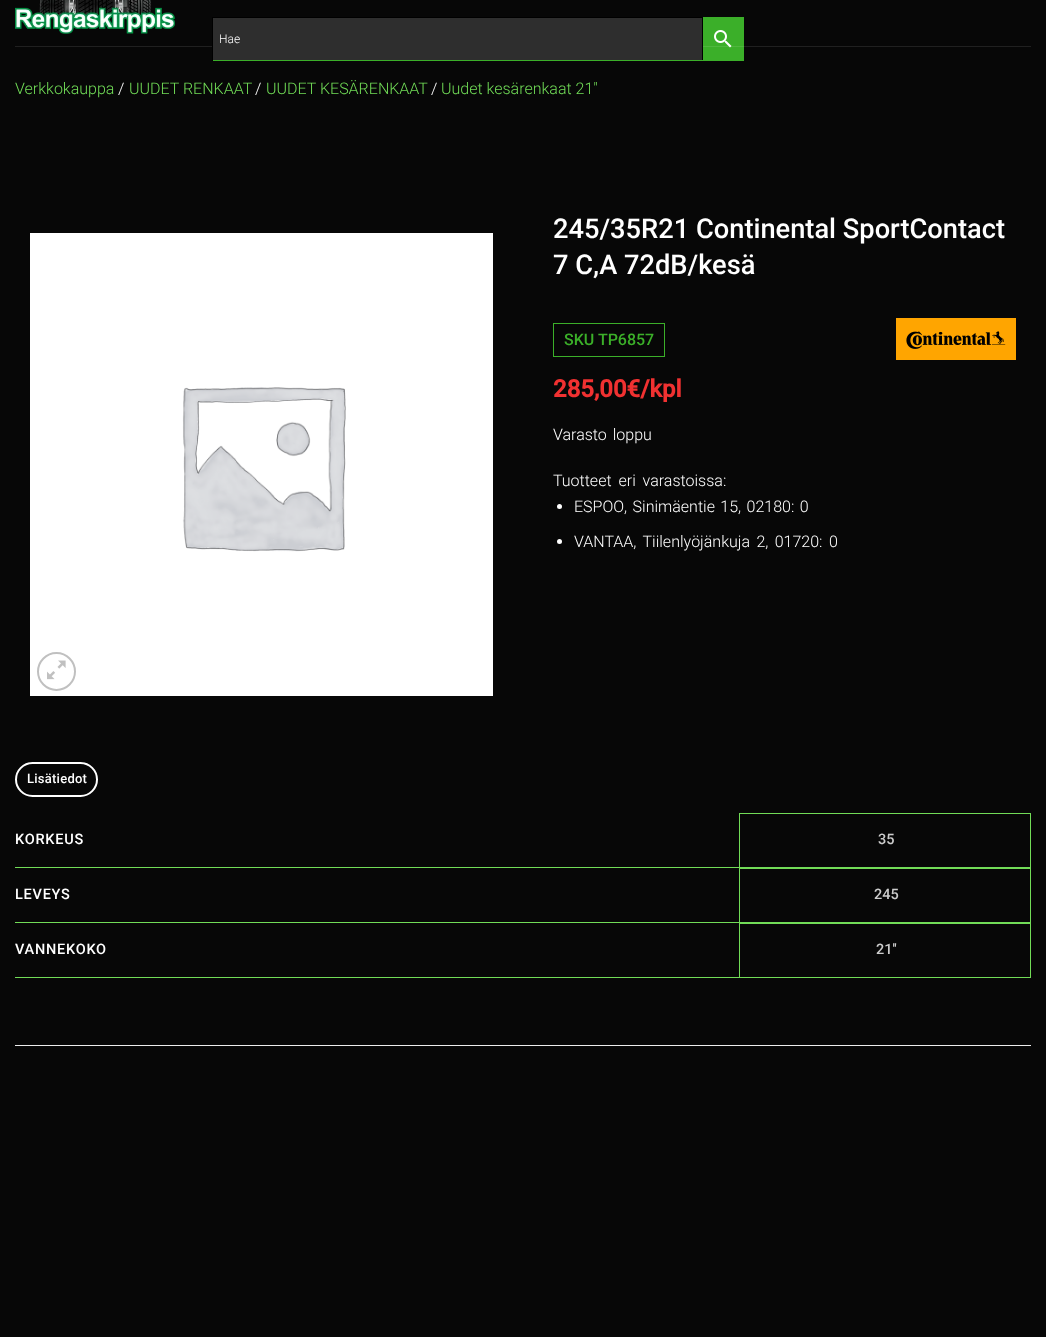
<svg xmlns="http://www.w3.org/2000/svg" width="1046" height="1337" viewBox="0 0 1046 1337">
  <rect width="100%" height="100%" fill="#070707"/>
  <image x="15" y="0" width="160" height="34" href="img1.png"/>
  <rect x="703" y="17" width="41" height="44" fill="#3baf29"/>
  <image x="714" y="30" width="18" height="18" href="img2.png"/>
  <rect x="15" y="46" width="1016" height="1" fill="#ffffff" fill-opacity="0.1"/>
  <rect x="213" y="18" width="489" height="42" fill="#2e2e2e"/>
  <rect x="212" y="17" width="491" height="1" fill="#000000"/>
  <rect x="702" y="17" width="1" height="44" fill="#000000"/>
  <rect x="212" y="60" width="491" height="1" fill="#3baf29"/>
  <rect x="212" y="17" width="1" height="44" fill="#000000"/>
  <text x="219" y="43" font-family="Roboto" font-size="12" font-weight="300" fill="#ffffff">Hae</text>
  <text x="15" y="94" font-family="Roboto" font-size="16" font-weight="300" fill="#71dc57">Verkkokauppa</text>
  <text x="118" y="94" font-family="Roboto" font-size="16" font-weight="300" fill="#ffffff">/</text>
  <text x="129" y="94" font-family="Roboto" font-size="16" font-weight="300" fill="#71dc57">UUDET RENKAAT</text>
  <text x="255" y="94" font-family="Roboto" font-size="16" font-weight="300" fill="#ffffff">/</text>
  <text x="266" y="94" font-family="Roboto" font-size="16" font-weight="300" fill="#71dc57">UUDET KESÄRENKAAT</text>
  <text x="431" y="94" font-family="Roboto" font-size="16" font-weight="300" fill="#ffffff">/</text>
  <text x="441" y="94" font-family="Roboto" font-size="16" font-weight="300" fill="#71dc57">Uudet kesärenkaat 21″</text>
  <image x="30" y="233" width="463" height="463" href="img3.png"/>
  <circle cx="56.5" cy="671.5" r="18.5" fill="none" stroke="#c0c0c0" stroke-width="2"/>
  <image x="47" y="660" width="19" height="20" href="img4.png"/>
  <text x="553" y="238" font-family="Roboto" font-size="27.25" font-weight="500" fill="#ffffff">245/35R21 Continental SportContact</text>
  <text x="553" y="274" font-family="Roboto" font-size="27.25" font-weight="500" fill="#ffffff">7 C,A 72dB/kesä</text>
  <rect x="553.5" y="323.5" width="111" height="33" fill="none" stroke="#3baf29"/>
  <text x="564" y="345" font-family="Roboto" font-size="16" font-weight="500" fill="#3baf29">SKU TP6857</text>
  <image x="896" y="318" width="120" height="42" href="img5.png"/>
  <text x="553" y="397" font-family="Roboto" font-size="24" font-weight="bold" fill="#f13131">285,00€/kpl</text>
  <text x="553" y="440" word-spacing="2" font-family="Roboto" font-size="16" font-weight="300" fill="#ffffff">Varasto loppu</text>
  <text x="553" y="486" word-spacing="3" font-family="Roboto" font-size="16" font-weight="300" fill="#ffffff">Tuotteet eri varastoissa:</text>
  <circle cx="559.5" cy="506.5" r="2.5" fill="#ffffff"/>
  <text x="574" y="512" word-spacing="1.5" font-family="Roboto" font-size="16" font-weight="300" fill="#ffffff">ESPOO, Sinimäentie 15, 02180: 0</text>
  <circle cx="559.5" cy="541.5" r="2.5" fill="#ffffff"/>
  <text x="574" y="547" word-spacing="2.5" font-family="Roboto" font-size="16" font-weight="300" fill="#ffffff">VANTAA, Tiilenlyöjänkuja 2, 01720: 0</text>
  <rect x="16" y="763" width="81" height="33" rx="16.5" fill="none" stroke="#ffffff" stroke-width="2"/>
  <text x="27" y="783" font-family="Roboto" font-size="13" font-weight="500" letter-spacing="0.25" fill="#ffffff">Lisätiedot</text>
  <rect x="15" y="867" width="724" height="1" fill="#71dc57"/>
  <text x="15" y="844" font-family="Roboto" font-size="14.5" font-weight="500" letter-spacing="0.75" fill="#ffffff">KORKEUS</text>
  <rect x="739.5" y="813.5" width="291" height="54" fill="none" stroke="#71dc57"/>
  <text x="878" y="844" font-family="Roboto" font-size="14.5" font-weight="500" fill="#cccccc">35</text>
  <rect x="15" y="922" width="724" height="1" fill="#71dc57"/>
  <text x="15" y="899" font-family="Roboto" font-size="14.5" font-weight="500" letter-spacing="0.75" fill="#ffffff">LEVEYS</text>
  <rect x="739.5" y="868.5" width="291" height="54" fill="none" stroke="#71dc57"/>
  <text x="874" y="899" font-family="Roboto" font-size="14.5" font-weight="500" fill="#cccccc">245</text>
  <rect x="15" y="977" width="724" height="1" fill="#71dc57"/>
  <text x="15" y="954" font-family="Roboto" font-size="14.5" font-weight="500" letter-spacing="0.75" fill="#ffffff">VANNEKOKO</text>
  <rect x="739.5" y="923.5" width="291" height="54" fill="none" stroke="#71dc57"/>
  <text x="876" y="954" font-family="Roboto" font-size="14.5" font-weight="500" fill="#cccccc">21''</text>
  <rect x="15" y="1045" width="1016" height="1" fill="#ececec"/>
</svg>
